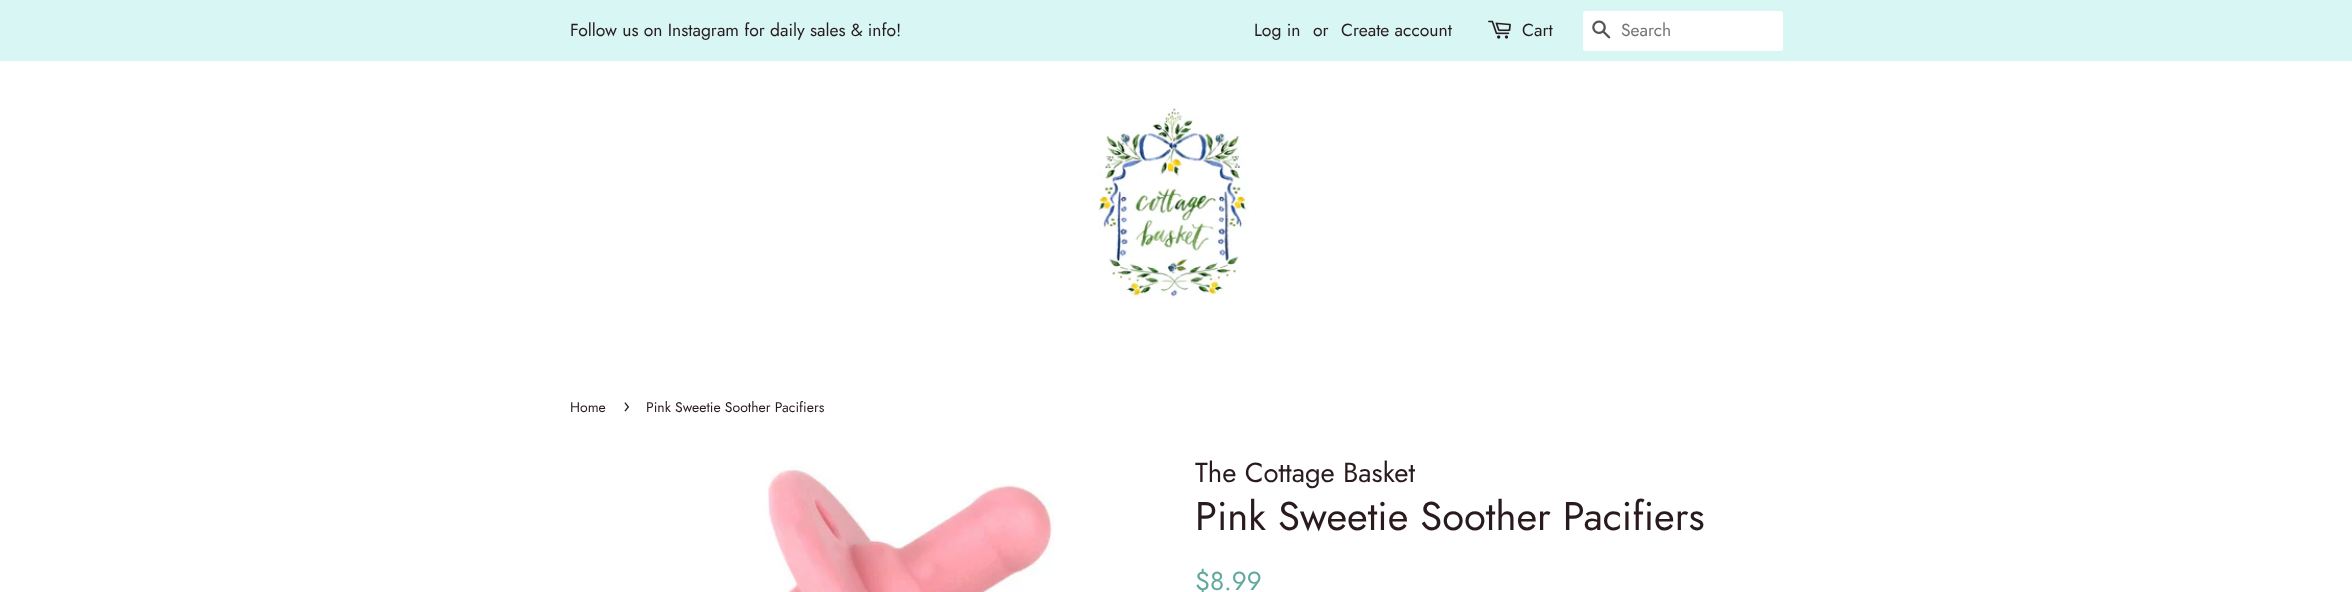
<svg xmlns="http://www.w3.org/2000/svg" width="2352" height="592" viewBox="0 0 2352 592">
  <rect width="100%" height="100%" fill="#ffffff"/>
  <rect x="0" y="0" width="2352" height="61" fill="#d7f6f4"/>
  <text x="570" y="36" font-family="Jost" font-size="17.5" fill="#291a1d">Follow us on Instagram for daily sales &amp; info!</text>
  <text x="1254" y="36" font-family="Jost" font-size="17.5" fill="#291a1d">Log in</text>
  <text x="1313" y="36" font-family="Jost" font-size="17.5" fill="#291a1d">or</text>
  <text x="1341" y="36" font-family="Jost" font-size="17.5" fill="#291a1d">Create account</text>
  <image x="1488" y="20" width="23" height="19" href="img1.png"/>
  <text x="1522" y="36" font-family="Jost" font-size="17.5" fill="#291a1d">Cart</text>
  <rect x="1583" y="11" width="200" height="40" rx="2.5" fill="#ffffff"/>
  <image x="1592" y="20" width="19" height="19" href="img2.png"/>
  <text x="1621" y="36" font-family="Jost" font-size="17.5" fill="#757575">Search</text>
  <image x="1098" y="107" width="151" height="192" href="img3.png"/>
  <text x="570" y="412" font-family="Jost" font-size="14" fill="#291a1d">Home</text>
  <text x="623" y="412" font-family="Jost" font-size="20" fill="#291a1d">›</text>
  <text x="646" y="412" font-family="Jost" font-size="14" fill="#291a1d">Pink Sweetie Soother Pacifiers</text>
  <image x="764" y="466" width="291" height="126" href="img4.png"/>
  <text x="1195" y="482" font-family="Jost" font-size="27.5" fill="#291a1d">The Cottage Basket</text>
  <text x="1195" y="530" font-family="Jost" font-size="40" fill="#291a1d">Pink Sweetie Soother Pacifiers</text>
  <text x="1195" y="590" font-family="Jost" font-size="26" fill="#60a99e">$8.99</text>
</svg>
